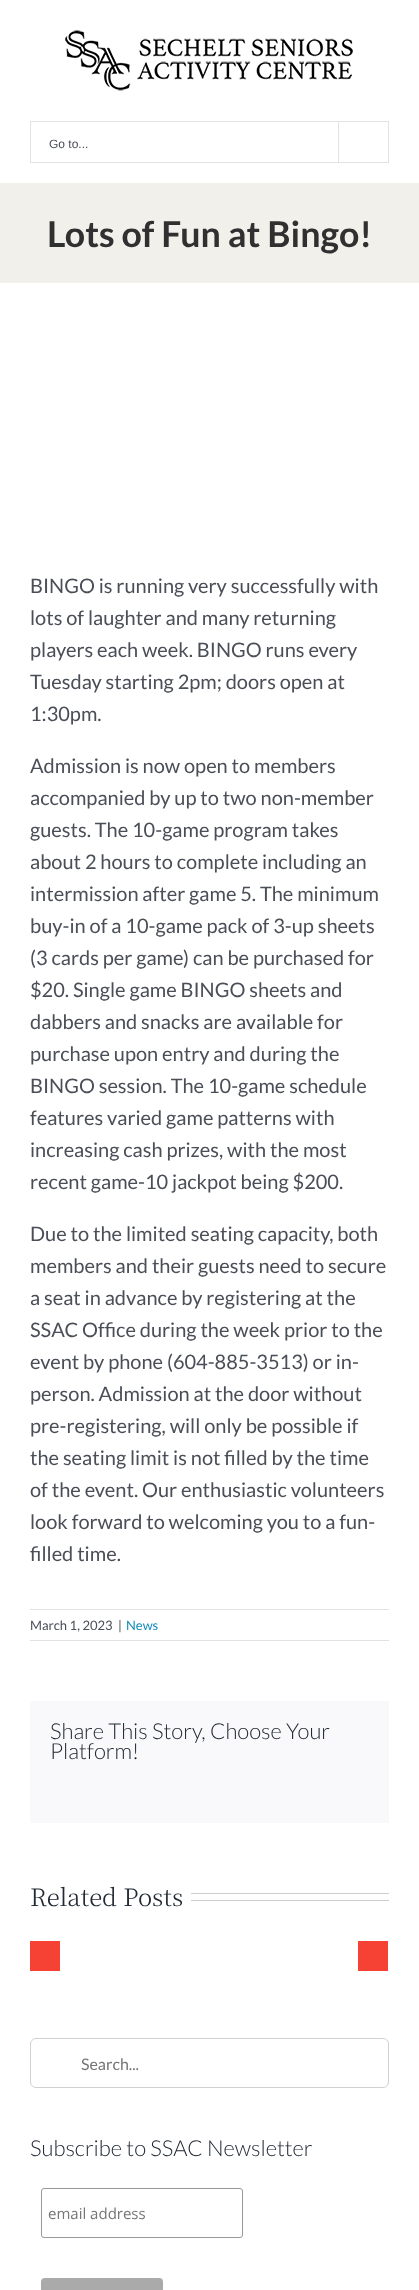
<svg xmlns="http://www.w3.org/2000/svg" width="419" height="2290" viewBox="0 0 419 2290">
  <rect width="100%" height="100%" fill="#ffffff"/>
  <image x="65" y="30" width="288" height="61" href="img1.png"/>
  <rect x="30.5" y="121.5" width="358" height="41" fill="none" stroke="#e2e2e2"/>
  <text x="49" y="148" font-family="Liberation Sans" font-size="12" fill="#4a4e57">Go to...</text>
  <rect x="338" y="122" width="1" height="40" fill="#e2e2e2"/>
  <rect x="0" y="183" width="419" height="100" fill="#f1f0eb"/>
  <text x="47" y="247" font-family="Lato" font-size="35.75" font-weight="bold" fill="#303030">Lots of Fun at Bingo!</text>
  <text x="30" y="593" font-family="Lato" font-size="20" fill="#4a4e57">BINGO is running very successfully with</text>
  <text x="30" y="625" font-family="Lato" font-size="20" fill="#4a4e57">lots of laughter and many returning</text>
  <text x="30" y="657" font-family="Lato" font-size="20" fill="#4a4e57">players each week. BINGO runs every</text>
  <text x="30" y="689" font-family="Lato" font-size="20" fill="#4a4e57">Tuesday starting 2pm; doors open at</text>
  <text x="30" y="721" font-family="Lato" font-size="20" fill="#4a4e57">1:30pm.</text>
  <text x="30" y="773" font-family="Lato" font-size="20" fill="#4a4e57">Admission is now open to members</text>
  <text x="30" y="805" font-family="Lato" font-size="20" fill="#4a4e57">accompanied by up to two non-member</text>
  <text x="30" y="837" font-family="Lato" font-size="20" fill="#4a4e57">guests. The 10-game program takes</text>
  <text x="30" y="869" font-family="Lato" font-size="20" fill="#4a4e57">about 2 hours to complete including an</text>
  <text x="30" y="901" font-family="Lato" font-size="20" fill="#4a4e57">intermission after game 5. The minimum</text>
  <text x="30" y="933" font-family="Lato" font-size="20" fill="#4a4e57">buy-in of a 10-game pack of 3-up sheets</text>
  <text x="30" y="965" font-family="Lato" font-size="20" fill="#4a4e57">(3 cards per game) can be purchased for</text>
  <text x="30" y="997" font-family="Lato" font-size="20" fill="#4a4e57">$20. Single game BINGO sheets and</text>
  <text x="30" y="1029" font-family="Lato" font-size="20" fill="#4a4e57">dabbers and snacks are available for</text>
  <text x="30" y="1061" font-family="Lato" font-size="20" fill="#4a4e57">purchase upon entry and during the</text>
  <text x="30" y="1093" font-family="Lato" font-size="20" fill="#4a4e57">BINGO session. The 10-game schedule</text>
  <text x="30" y="1125" font-family="Lato" font-size="20" fill="#4a4e57">features varied game patterns with</text>
  <text x="30" y="1157" font-family="Lato" font-size="20" fill="#4a4e57">increasing cash prizes, with the most</text>
  <text x="30" y="1189" font-family="Lato" font-size="20" fill="#4a4e57">recent game-10 jackpot being $200.</text>
  <text x="30" y="1241" font-family="Lato" font-size="20" fill="#4a4e57">Due to the limited seating capacity, both</text>
  <text x="30" y="1273" font-family="Lato" font-size="20" fill="#4a4e57">members and their guests need to secure</text>
  <text x="30" y="1305" font-family="Lato" font-size="20" fill="#4a4e57">a seat in advance by registering at the</text>
  <text x="30" y="1337" font-family="Lato" font-size="20" fill="#4a4e57">SSAC Office during the week prior to the</text>
  <text x="30" y="1369" font-family="Lato" font-size="20" fill="#4a4e57">event by phone (604-885-3513) or in-</text>
  <text x="30" y="1401" font-family="Lato" font-size="20" fill="#4a4e57">person. Admission at the door without</text>
  <text x="30" y="1433" font-family="Lato" font-size="20" fill="#4a4e57">pre-registering, will only be possible if</text>
  <text x="30" y="1465" font-family="Lato" font-size="20" fill="#4a4e57">the seating limit is not filled by the time</text>
  <text x="30" y="1497" font-family="Lato" font-size="20" fill="#4a4e57">of the event. Our enthusiastic volunteers</text>
  <text x="30" y="1529" font-family="Lato" font-size="20" fill="#4a4e57">look forward to welcoming you to a fun-</text>
  <text x="30" y="1561" font-family="Lato" font-size="20" fill="#4a4e57">filled time.</text>
  <rect x="30" y="1609" width="359" height="1" fill="#e2e2e2"/>
  <rect x="30" y="1640" width="359" height="1" fill="#e2e2e2"/>
  <text x="30" y="1630" font-family="Lato" font-size="13" fill="#4a4e57">March 1, 2023</text>
  <text x="118" y="1630" font-family="Lato" font-size="13" fill="#4a4e57">|</text>
  <text x="126" y="1630" font-family="Lato" font-size="13" fill="#0e8cba">News</text>
  <rect x="30" y="1701" width="359" height="122" fill="#f9f9fb"/>
  <text x="50" y="1739" font-family="Lato" font-size="22" font-weight="300" fill="#212934">Share This Story, Choose Your</text>
  <text x="50" y="1759" font-family="Lato" font-size="22" font-weight="300" fill="#212934">Platform!</text>
  <text x="30" y="1906" font-family="Noto Serif TC" font-size="24" font-weight="300" fill="#212934">Related Posts</text>
  <rect x="191" y="1893" width="198" height="1" fill="#cecece"/>
  <rect x="191" y="1900" width="198" height="1" fill="#cecece"/>
  <rect x="30" y="1941" width="30" height="30" fill="#f64235"/>
  <rect x="358" y="1941" width="30" height="30" fill="#f64235"/>
  <rect x="30.5" y="2038.5" width="358" height="49" rx="5.5" fill="none" stroke="#d1d1d1"/>
  <text x="81" y="2070" font-family="Lato" font-size="16" fill="#757575">Search...</text>
  <text x="30" y="2156" font-family="Lato" font-size="22" font-weight="300" fill="#212934">Subscribe to SSAC Newsletter</text>
  <rect x="41.5" y="2188.5" width="201" height="49" rx="2.5" fill="none" stroke="#999999"/>
  <text x="48" y="2219" font-family="Open Sans" font-size="15" fill="#757575">email address</text>
  <rect x="41" y="2278" width="122" height="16" rx="4" fill="#aaaaaa"/>
</svg>
